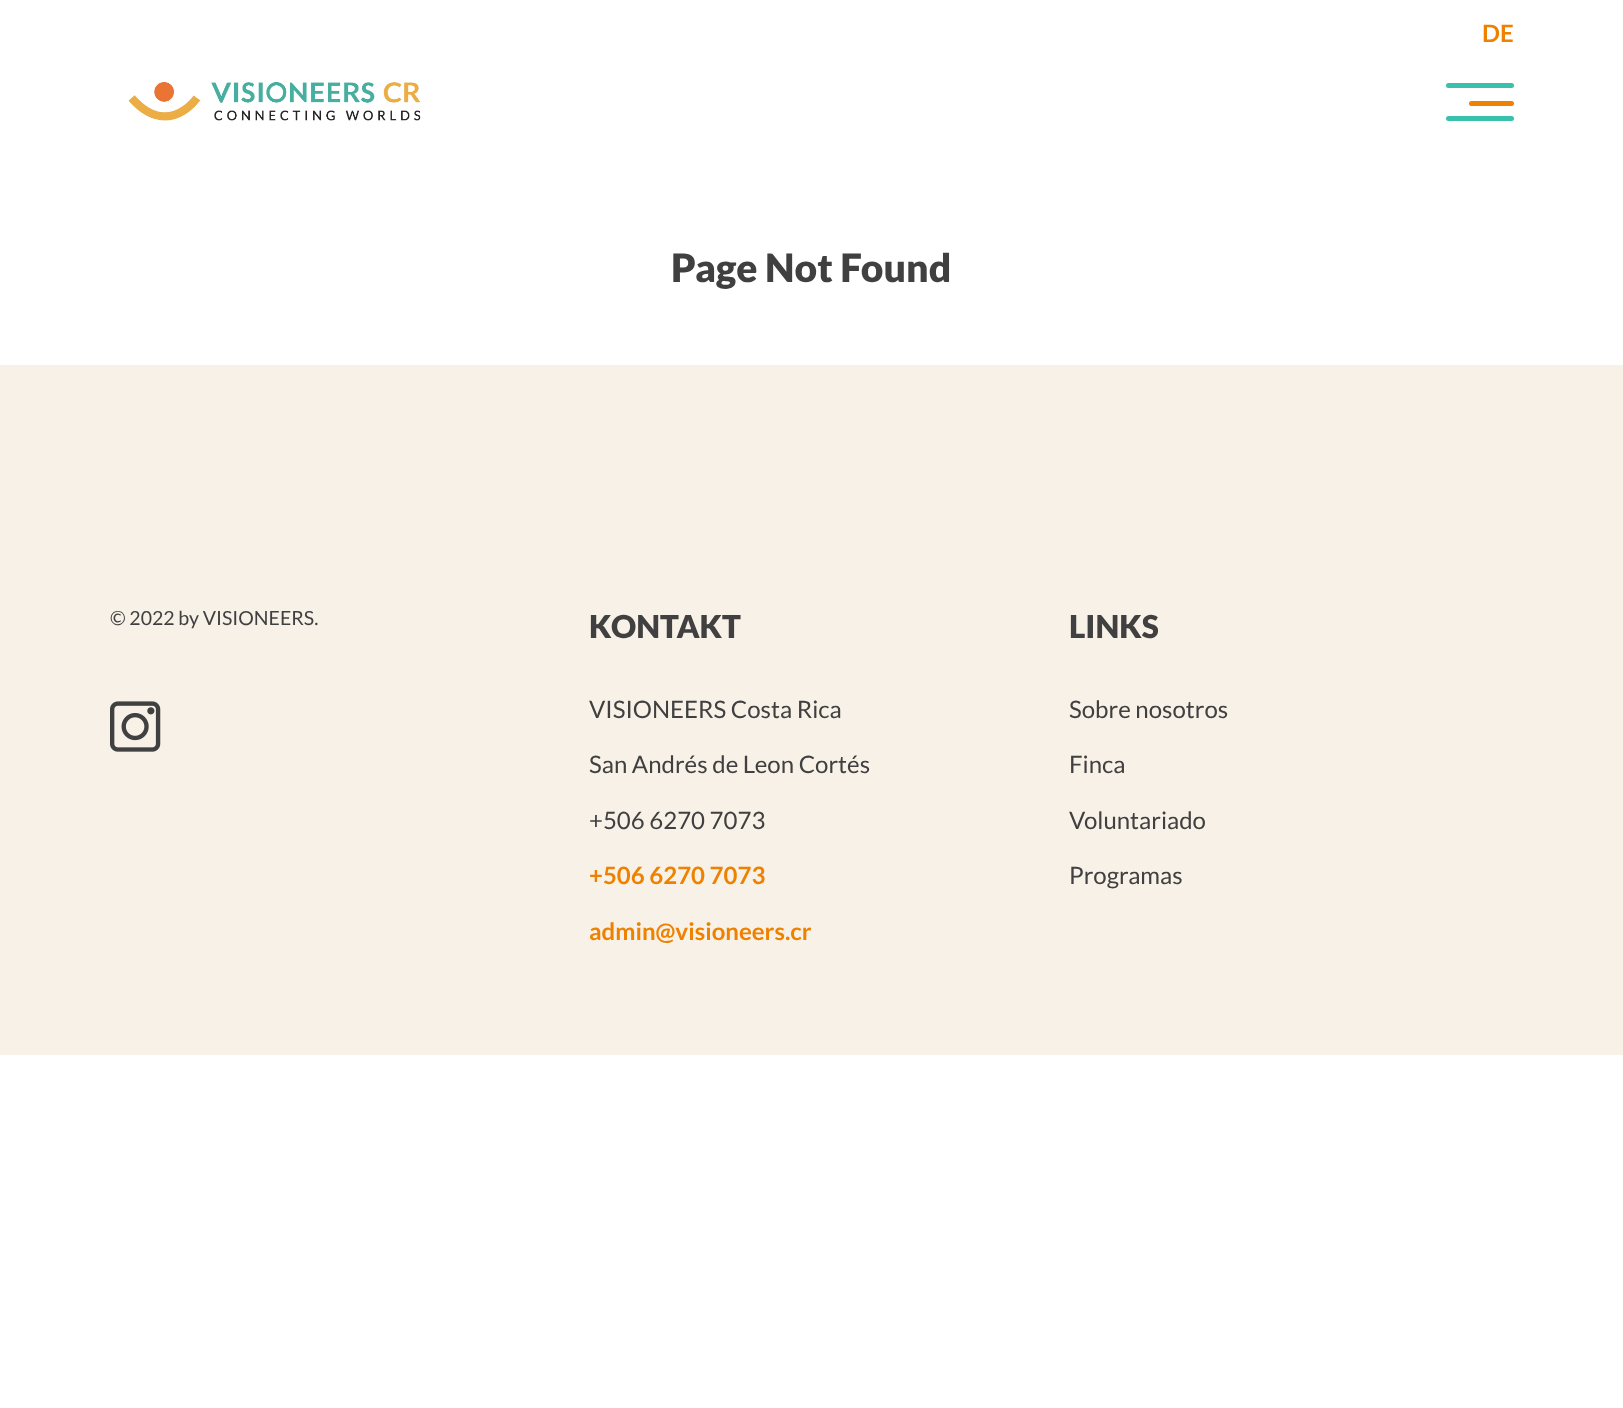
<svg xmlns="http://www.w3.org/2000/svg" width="1623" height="1408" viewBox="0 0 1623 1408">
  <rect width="100%" height="100%" fill="#ffffff"/>
  <text x="1482" y="42" font-family="Lato" font-size="24" font-weight="bold" fill="#ee8200">DE</text>
  <image x="128" y="81" width="293" height="40" href="img1.png"/>
  <rect x="1446" y="83" width="68" height="5" rx="2.5" fill="#3ac1ac"/>
  <rect x="1469" y="101" width="45" height="5" rx="2.5" fill="#ee8200"/>
  <rect x="1446" y="116" width="68" height="5" rx="2.5" fill="#3ac1ac"/>
  <text x="671" y="282" font-family="Lato" font-size="39" font-weight="900" fill="#404040">Page Not Found</text>
  <rect x="0" y="365" width="1623" height="690" fill="#f8f1e7"/>
  <text x="110" y="625" font-family="Lato" font-size="19.5" fill="#404040">© 2022 by VISIONEERS.</text>
  <image x="110" y="701" width="51" height="51" href="img2.png"/>
  <text x="589" y="638" font-family="Lato" font-size="31.5" font-weight="900" fill="#404040">KONTAKT</text>
  <text x="589" y="718" font-family="Lato" font-size="24" fill="#404040">VISIONEERS Costa Rica</text>
  <text x="589" y="773" font-family="Lato" font-size="24" fill="#404040">San Andrés de Leon Cortés</text>
  <text x="589" y="829" font-family="Lato" font-size="24" fill="#404040">+506 6270 7073</text>
  <text x="589" y="884" font-family="Lato" font-size="24" font-weight="bold" fill="#ee8200">+506 6270 7073</text>
  <text x="589" y="940" font-family="Lato" font-size="24" font-weight="bold" fill="#ee8200">admin@visioneers.cr</text>
  <text x="1069" y="638" font-family="Lato" font-size="31.5" font-weight="900" fill="#404040">LINKS</text>
  <text x="1069" y="718" font-family="Lato" font-size="24" fill="#404040">Sobre nosotros</text>
  <text x="1069" y="773" font-family="Lato" font-size="24" fill="#404040">Finca</text>
  <text x="1069" y="829" font-family="Lato" font-size="24" fill="#404040">Voluntariado</text>
  <text x="1069" y="884" font-family="Lato" font-size="24" fill="#404040">Programas</text>
</svg>
